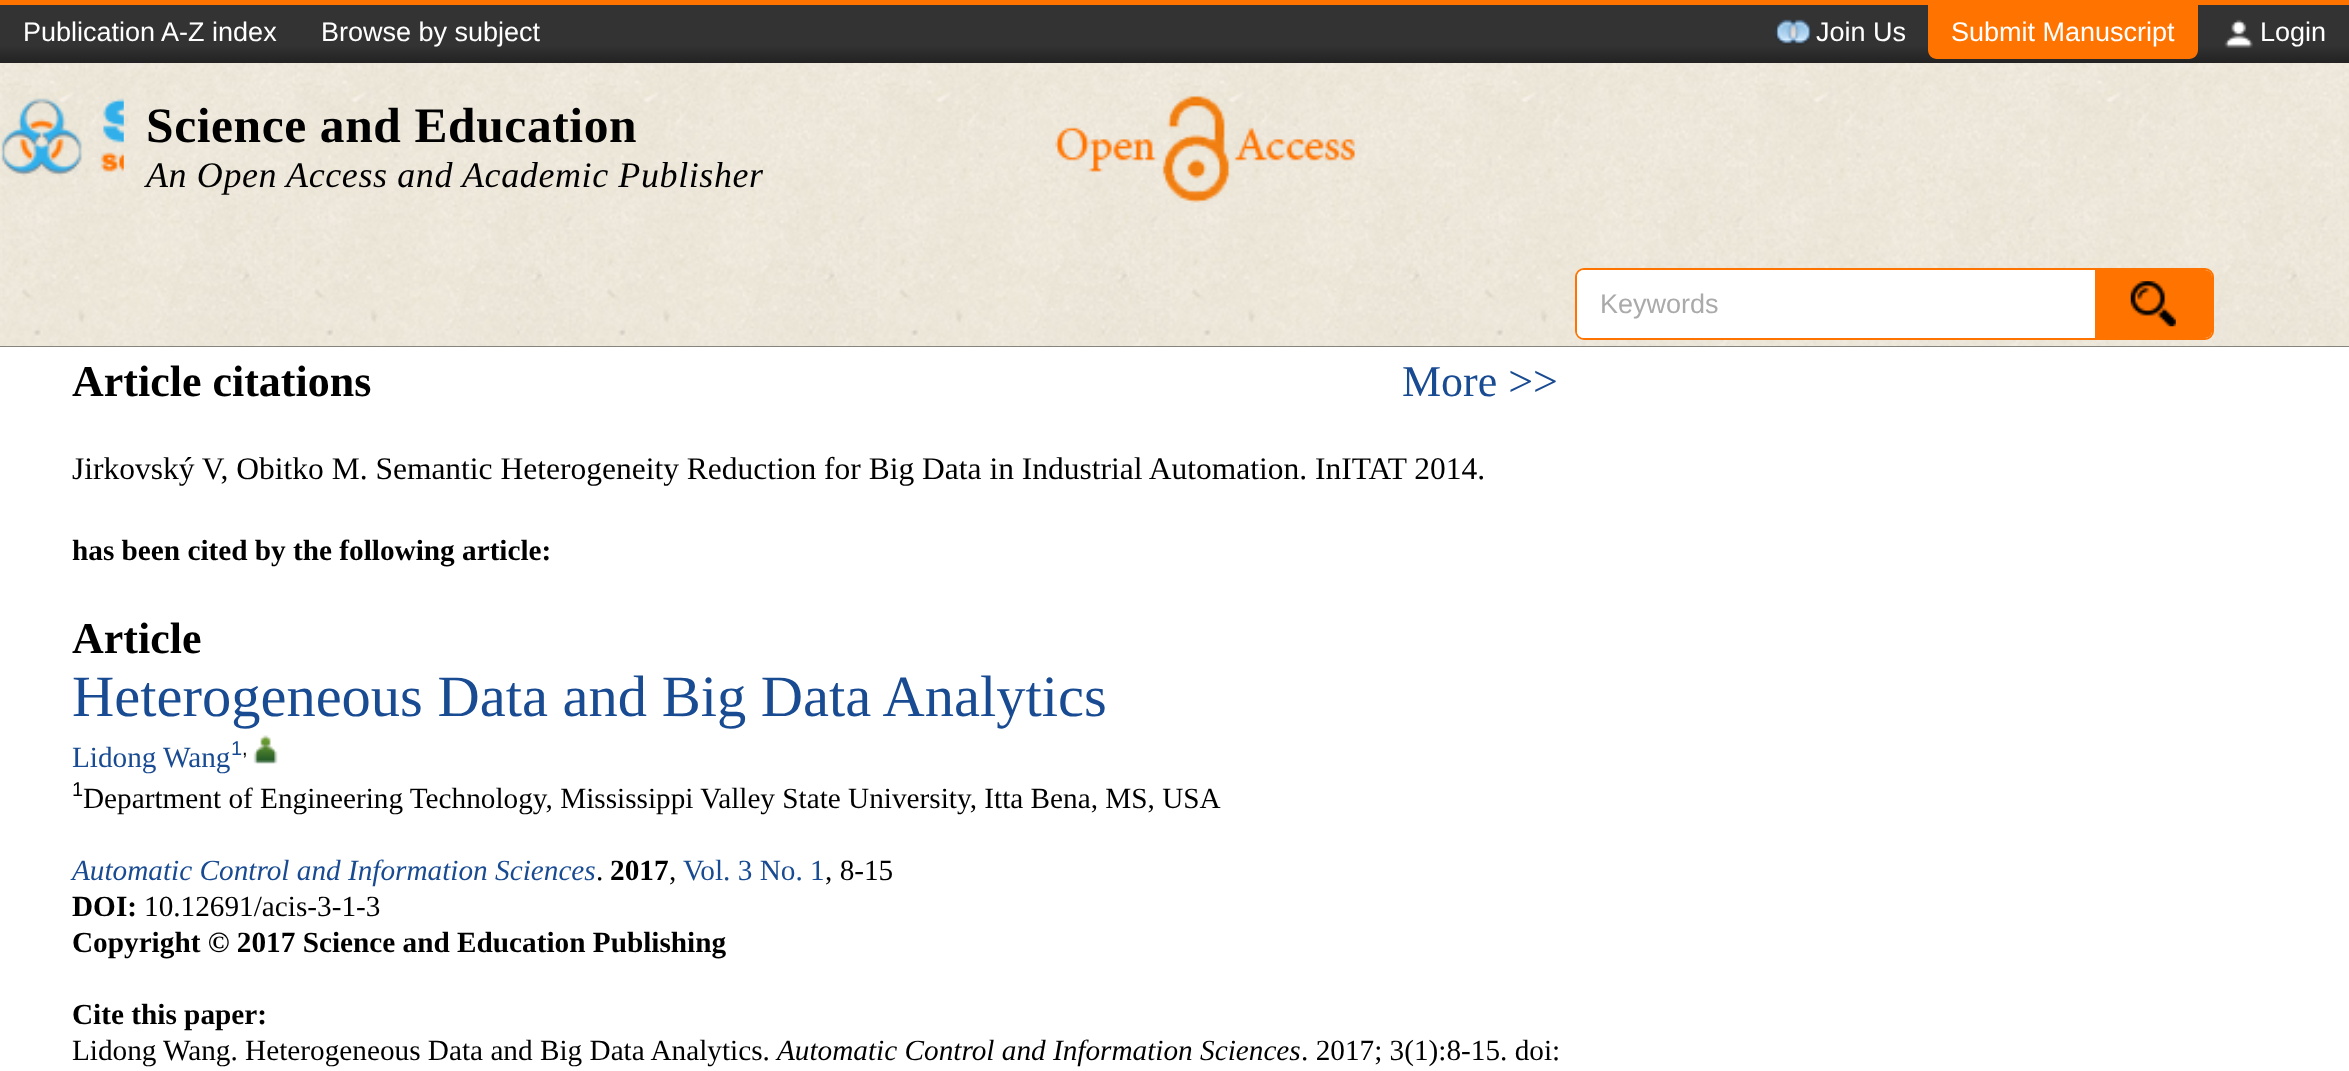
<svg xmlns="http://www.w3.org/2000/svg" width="2349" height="1071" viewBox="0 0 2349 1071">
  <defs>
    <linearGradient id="g1" gradientUnits="userSpaceOnUse" x1="1175" y1="4.5" x2="1175" y2="63"><stop offset="0.7" stop-color="#333333"/><stop offset="1" stop-color="#222222"/></linearGradient>
  </defs>
  <rect width="100%" height="100%" fill="#ffffff"/>
  <rect x="0" y="0" width="2349" height="5" fill="#ff7400"/>
  <rect x="0" y="5" width="2349" height="58" fill="url(#g1)"/>
  <text x="23" y="41" font-family="Liberation Sans" font-size="27" fill="#ffffff">Publication A-Z index</text>
  <text x="321" y="41" font-family="Liberation Sans" font-size="27" fill="#ffffff">Browse by subject</text>
  <image x="1775" y="19" width="37" height="26" href="img1.png"/>
  <text x="1816" y="41" font-family="Liberation Sans" font-size="27" fill="#ffffff">Join Us</text>
  <path d="M1928 5H2198V50C2198 55 2194 59 2189 59H1937C1932 59 1928 55 1928 50Z" fill="#ff7400"/>
  <text x="1951" y="41" font-family="Liberation Sans" font-size="27" fill="#ffffff">Submit Manuscript</text>
  <image x="2224" y="19" width="29" height="29" href="img2.png"/>
  <text x="2260" y="41" font-family="Liberation Sans" font-size="27" fill="#ffffff">Login</text>
  <rect x="0" y="346" width="2349" height="1" fill="#212121"/>
  <image x="0" y="63" width="2349" height="284" href="img3.png"/>
  <image x="1" y="98" width="123" height="78" href="img4.png"/>
  <text x="146" y="142" font-family="Liberation Serif" font-size="49.5" font-weight="bold" letter-spacing="0.6" fill="#000000">Science and Education</text>
  <text x="146" y="187" font-family="Liberation Serif" font-size="36" font-style="italic" letter-spacing="0.6" fill="#000000">An Open Access and Academic Publisher</text>
  <image x="1055" y="95" width="300" height="108" href="img5.png"/>
  <rect x="1576" y="269" width="637" height="70" rx="8" fill="#ffffff" stroke="#ff7400" stroke-width="2"/>
  <path d="M1584 270H2005V338H1584C1580 338 1577 335 1577 331V277C1577 273 1580 270 1584 270Z" fill="#ffffff"/>
  <text x="1600" y="313" font-family="Liberation Sans" font-size="27" fill="#aaaaaa">Keywords</text>
  <path d="M2095 270H2205C2209 270 2212 273 2212 277V331C2212 335 2209 338 2205 338H2095Z" fill="#ff7400"/>
  <image x="2130" y="281" width="46" height="46" href="img6.png"/>
  <text x="72" y="396" font-family="Liberation Serif" font-size="44" font-weight="bold" fill="#000000">Article citations</text>
  <text x="1402" y="396" font-family="Liberation Serif" font-size="44" fill="#194b92">More &gt;&gt;</text>
  <text x="72" y="479" font-family="Liberation Serif" font-size="31.5" fill="#000000">Jirkovský V, Obitko M. Semantic Heterogeneity Reduction for Big Data in Industrial Automation. InITAT 2014.</text>
  <text x="72" y="560" font-family="Liberation Serif" font-size="29.25" font-weight="bold" fill="#000000">has been cited by the following article:</text>
  <text x="72" y="653" font-family="Liberation Serif" font-size="44" font-weight="bold" fill="#000000">Article</text>
  <text x="72" y="716" font-family="Liberation Serif" font-size="58.5" fill="#194b92">Heterogeneous Data and Big Data Analytics</text>
  <text x="72" y="767" font-family="Liberation Serif" font-size="29.25" fill="#194b92">Lidong</text>
  <text x="163" y="767" font-family="Liberation Serif" font-size="29.25" fill="#194b92">Wang</text>
  <text x="231" y="755" font-family="Liberation Sans" font-size="20" fill="#194b92">1</text>
  <text x="242" y="755" font-family="Liberation Sans" font-size="20" fill="#000000">,</text>
  <image x="253" y="735" width="25" height="29" href="img7.png"/>
  <text x="72" y="796" font-family="Liberation Sans" font-size="20" fill="#000000">1</text>
  <text x="83" y="808" font-family="Liberation Serif" font-size="29.25" fill="#000000">Department of Engineering Technology, Mississippi Valley State University, Itta Bena, MS, USA</text>
  <text x="72" y="880" font-family="Liberation Serif" font-size="29.25" font-style="italic" fill="#194b92">Automatic Control and Information Sciences</text>
  <text x="596" y="880" font-family="Liberation Serif" font-size="29.25" fill="#000000">.</text>
  <text x="610" y="880" font-family="Liberation Serif" font-size="29.25" font-weight="bold" fill="#000000">2017</text>
  <text x="669" y="880" font-family="Liberation Serif" font-size="29.25" fill="#000000">,</text>
  <text x="683" y="880" font-family="Liberation Serif" font-size="29.25" fill="#194b92">Vol. 3 No. 1</text>
  <text x="825" y="880" font-family="Liberation Serif" font-size="29.25" fill="#000000">, 8-15</text>
  <text x="72" y="916" font-family="Liberation Serif" font-size="29.25" font-weight="bold" fill="#000000">DOI:</text>
  <text x="144" y="916" font-family="Liberation Serif" font-size="29.25" fill="#000000">10.12691/acis-3-1-3</text>
  <text x="72" y="952" font-family="Liberation Serif" font-size="29.25" font-weight="bold" fill="#000000">Copyright © 2017 Science and Education Publishing</text>
  <text x="72" y="1024" font-family="Liberation Serif" font-size="29.25" font-weight="bold" fill="#000000">Cite this paper:</text>
  <text x="72" y="1060" font-family="Liberation Serif" font-size="29.25" fill="#000000">Lidong</text>
  <text x="163" y="1060" font-family="Liberation Serif" font-size="29.25" fill="#000000">Wang. Heterogeneous Data and Big Data Analytics.</text>
  <text x="777" y="1060" font-family="Liberation Serif" font-size="29.25" font-style="italic" fill="#000000">Automatic Control and Information Sciences</text>
  <text x="1301" y="1060" font-family="Liberation Serif" font-size="29.25" fill="#000000">. 2017; 3(1):8-15. doi:</text>
</svg>
